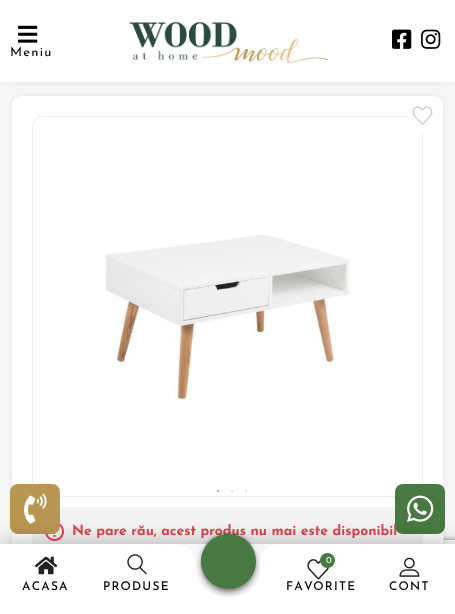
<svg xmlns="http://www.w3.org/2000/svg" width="455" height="614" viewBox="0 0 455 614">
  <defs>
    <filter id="blur1" x="-50%" y="-200%" width="200%" height="500%"><feGaussianBlur stdDeviation="2.5"/></filter>
    <clipPath id="clip1"><rect x="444" y="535" width="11" height="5"/></clipPath>
    <filter id="blur2" x="-50%" y="-200%" width="200%" height="500%"><feGaussianBlur stdDeviation="6"/></filter>
    <filter id="blur3" x="-50%" y="-200%" width="200%" height="500%"><feGaussianBlur stdDeviation="12.5"/></filter>
    <clipPath id="clip2"><rect x="260" y="544" width="19" height="20"/></clipPath>
    <filter id="blur4" x="-50%" y="-200%" width="200%" height="500%"><feGaussianBlur stdDeviation="1.5"/></filter>
    <filter id="blur5" x="-50%" y="-200%" width="200%" height="500%"><feGaussianBlur stdDeviation="3"/></filter>
    <filter id="blur6" x="-50%" y="-200%" width="200%" height="500%"><feGaussianBlur stdDeviation="0.5"/></filter>
  </defs>
  <rect width="100%" height="100%" fill="#f6f6f6"/>
  <rect x="11" y="95" width="433" height="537" rx="10" fill="#000000" fill-opacity="0.05" filter="url(#blur1)"/>
  <g clip-path="url(#clip1)">
    <rect x="385" y="540" width="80" height="60" rx="2" fill="#808080" filter="url(#blur1)"/>
  </g>
  <rect x="11" y="95" width="433" height="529" rx="10" fill="#ffffff"/>
  <path d="M21 95H434C440 95 444 99 444 105V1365C444 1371 440 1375 434 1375H21C15 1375 11 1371 11 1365V105C11 99 15 95 21 95ZM21 96H434C439 96 443 100 443 105V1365C443 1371 439 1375 434 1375H21C16 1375 12 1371 12 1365V105C12 100 16 96 21 96Z" fill="#eeeeee" fill-rule="evenodd"/>
  <rect x="4" y="6" width="447" height="74" fill="#000000" fill-opacity="0.1" filter="url(#blur2)"/>
  <rect x="0" y="0" width="455" height="82" fill="#ffffff"/>
  <image x="129" y="22" width="199" height="42" href="img1.png"/>
  <image x="392" y="29" width="20" height="20" href="img2.png"/>
  <image x="421" y="29" width="20" height="20" href="img3.png"/>
  <image x="18" y="25" width="20" height="18" href="img4.png"/>
  <text x="10" y="56" font-family="Josefin Sans" font-size="13" letter-spacing="1.25" fill="#000000">Meniu</text>
  <rect x="32.5" y="116.5" width="390" height="380" rx="9.5" fill="none" stroke="#eeeeee"/>
  <rect x="32" y="507" width="391" height="37" fill="#f3f3f3"/>
  <image x="45" y="523" width="19" height="18" href="img12.png"/>
  <rect x="10" y="484" width="50" height="50" rx="8" fill="#b99651"/>
  <image x="24" y="493" width="23" height="31" href="img9.png"/>
  <text x="72" y="535" font-family="Josefin Sans" font-size="14" font-weight="bold" fill="#de444c">Ne pare rău, acest produs nu mai este disponibil</text>
  <rect x="395" y="484" width="50" height="50" rx="8" fill="#497942"/>
  <image x="407" y="495" width="27" height="27" href="img13.png"/>
  <rect x="0" y="544" width="455" height="70" fill="#000000" fill-opacity="0.3" filter="url(#blur3)"/>
  <rect x="0" y="544" width="455" height="70" fill="#ffffff"/>
  <path d="M196 544H260C260 554 262 573 258 581C245 606 196 600 196 570Z" fill="#f6f6f6"/>
  <path d="M195.5 544V564C195 551 188 545 176 544Z" fill="#f6f6f6" fill-rule="evenodd"/>
  <g clip-path="url(#clip2)">
    <path d="M259.5 544V564C260 551 267 545 279.5 544Z" fill="#f6f6f6" fill-rule="evenodd"/>
  </g>
  <rect x="201" y="531" width="55" height="55" rx="27.5" fill="#000000" fill-opacity="0.09" filter="url(#blur1)"/>
  <rect x="201" y="536" width="55" height="55" rx="27.5" fill="#000000" fill-opacity="0.17" filter="url(#blur4)"/>
  <rect x="201" y="538" width="55" height="55" rx="27.5" fill="#000000" fill-opacity="0.12" filter="url(#blur5)"/>
  <rect x="201" y="532" width="55" height="55" rx="27.5" fill="#000000" fill-opacity="0.12" filter="url(#blur6)"/>
  <rect x="201" y="538" width="55" height="55" rx="27.5" fill="#000000" fill-opacity="0.25" filter="url(#blur1)"/>
  <circle cx="228.5" cy="561.5" r="27.5" fill="#497942"/>
  <image x="34" y="556" width="24" height="19" href="img5.png"/>
  <text x="22" y="590" font-family="Josefin Sans" font-size="12" font-weight="500" letter-spacing="1.25" fill="#000000">ACASA</text>
  <image x="127" y="554" width="20" height="21" href="img6.png"/>
  <text x="103" y="590" font-family="Josefin Sans" font-size="12" font-weight="500" letter-spacing="1.25" fill="#000000">PRODUSE</text>
  <image x="307" y="559" width="23" height="21" href="img7.png"/>
  <circle cx="327.5" cy="560.5" r="7.5" fill="#497942"/>
  <text x="326" y="563" font-family="Josefin Sans" font-size="9" letter-spacing="1.25" fill="#ffffff">0</text>
  <text x="286" y="590" font-family="Josefin Sans" font-size="12" font-weight="500" letter-spacing="1.25" fill="#000000">FAVORITE</text>
  <image x="399" y="557" width="21" height="20" href="img8.png"/>
  <text x="389" y="590" font-family="Josefin Sans" font-size="12" font-weight="500" letter-spacing="1.25" fill="#000000">CONT</text>
  <image x="105" y="234" width="245" height="166" href="img10.png"/>
  <text x="217" y="493" font-family="Liberation Serif" font-size="6" fill="#404040">•</text>
  <text x="231" y="493" font-family="Liberation Serif" font-size="6" fill="#bfbfbf">•</text>
  <text x="245" y="493" font-family="Liberation Serif" font-size="6" fill="#bfbfbf">•</text>
  <circle cx="423" cy="116" r="15" fill="#ffffff"/>
  <image x="412" y="106" width="21" height="19" href="img11.png"/>
</svg>
